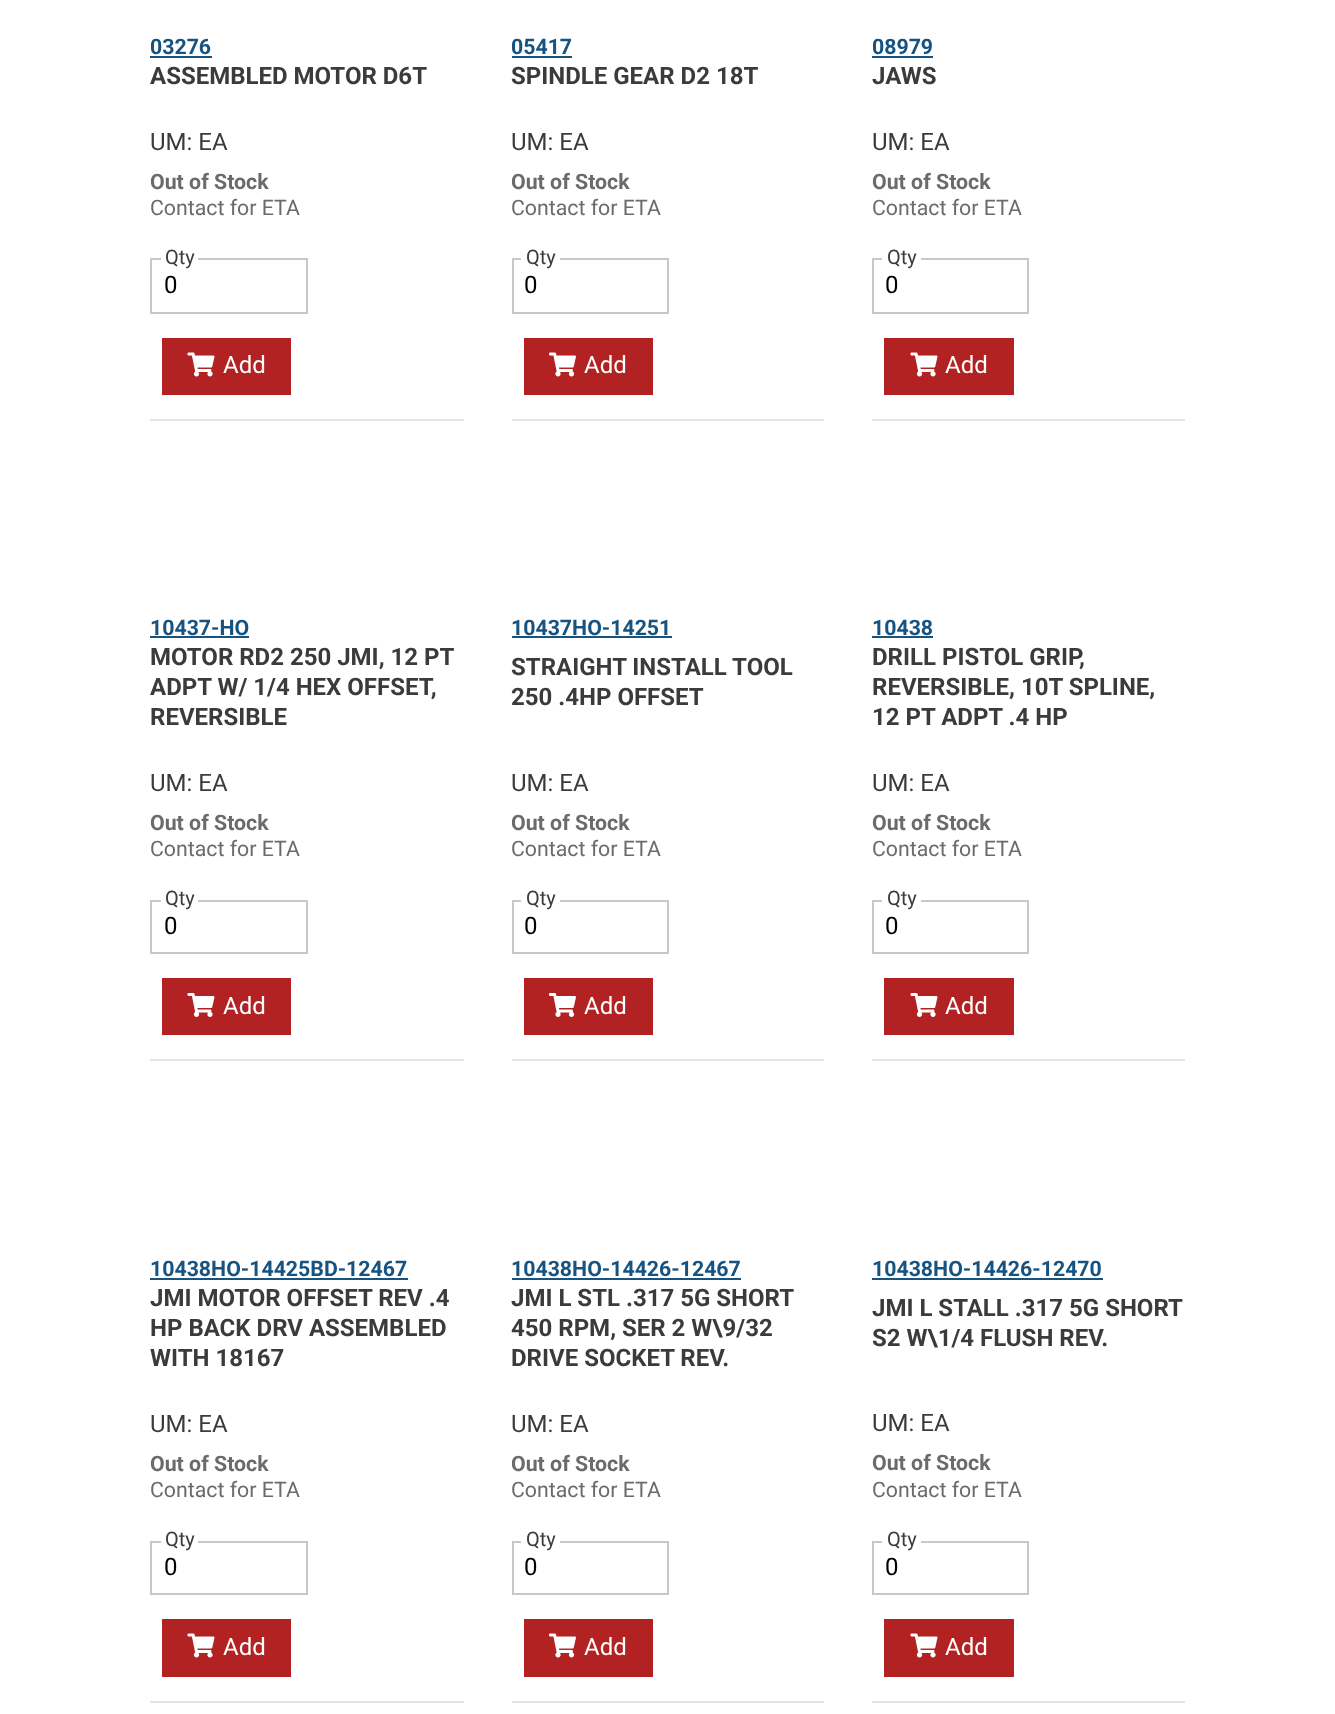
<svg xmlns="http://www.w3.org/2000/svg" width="1335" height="1714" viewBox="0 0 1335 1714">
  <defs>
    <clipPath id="clip1"><rect x="512" y="0" width="312" height="419"/></clipPath>
    <clipPath id="clip2"><rect x="512" y="444" width="312" height="615"/></clipPath>
    <clipPath id="clip3"><rect x="512" y="1085" width="312" height="616"/></clipPath>
  </defs>
  <rect width="100%" height="100%" fill="#ffffff"/>
  <rect x="150" y="419" width="314" height="2" fill="#e4e4e4"/>
  <text x="150" y="54" font-family="Roboto" font-size="21.3" font-weight="bold" fill="#175381">03276</text>
  <rect x="150" y="56" width="62" height="2" fill="#175381"/>
  <text x="150" y="84" font-family="Roboto" font-size="24" font-weight="bold" fill="#3b3b3b">ASSEMBLED MOTOR D6T</text>
  <text x="150" y="150" font-family="Roboto" font-size="24" fill="#3b3b3b">UM: EA</text>
  <text x="150" y="189" font-family="Roboto" font-size="21.3" font-weight="bold" fill="#6b6b6b">Out of Stock</text>
  <text x="150" y="215" font-family="Roboto" font-size="21.3" fill="#6b6b6b">Contact for ETA</text>
  <rect x="151" y="259" width="156" height="54" fill="none" stroke="#c8c8c8" stroke-width="2"/>
  <rect x="161" y="258" width="37" height="2" fill="#ffffff"/>
  <text x="165" y="264" font-family="Roboto" font-size="20" fill="#3b3b3b">Qty</text>
  <text x="164" y="293" font-family="Roboto" font-size="24" fill="#000000">0</text>
  <rect x="162" y="338" width="129" height="57" fill="#b22222"/>
  <image x="187" y="352" width="28" height="25" href="img1.png"/>
  <text x="223" y="373" font-family="Roboto" font-size="24" fill="#ffffff">Add</text>
  <rect x="512" y="419" width="312" height="2" fill="#e4e4e4"/>
  <text x="511" y="54" font-family="Roboto" font-size="21.3" font-weight="bold" fill="#175381">05417</text>
  <rect x="512" y="56" width="60" height="2" fill="#175381"/>
  <text x="511" y="84" font-family="Roboto" font-size="24" font-weight="bold" fill="#3b3b3b">SPINDLE GEAR D2 18T</text>
  <text x="511" y="150" font-family="Roboto" font-size="24" fill="#3b3b3b">UM: EA</text>
  <g clip-path="url(#clip1)">
    <text x="511" y="189" font-family="Roboto" font-size="21.3" font-weight="bold" fill="#6b6b6b">Out of Stock</text>
  </g>
  <text x="511" y="215" font-family="Roboto" font-size="21.3" fill="#6b6b6b">Contact for ETA</text>
  <rect x="513" y="259" width="155" height="54" fill="none" stroke="#c8c8c8" stroke-width="2"/>
  <rect x="521" y="258" width="39" height="2" fill="#ffffff"/>
  <text x="526" y="264" font-family="Roboto" font-size="20" fill="#3b3b3b">Qty</text>
  <text x="524" y="293" font-family="Roboto" font-size="24" fill="#000000">0</text>
  <rect x="524" y="338" width="129" height="57" fill="#b22222"/>
  <image x="549" y="352" width="27" height="25" href="img2.png"/>
  <text x="584" y="373" font-family="Roboto" font-size="24" fill="#ffffff">Add</text>
  <rect x="872" y="419" width="313" height="2" fill="#e4e4e4"/>
  <text x="872" y="54" font-family="Roboto" font-size="21.3" font-weight="bold" fill="#175381">08979</text>
  <rect x="872" y="56" width="61" height="2" fill="#175381"/>
  <text x="872" y="84" font-family="Roboto" font-size="24" font-weight="bold" fill="#3b3b3b">JAWS</text>
  <text x="872" y="150" font-family="Roboto" font-size="24" fill="#3b3b3b">UM: EA</text>
  <text x="872" y="189" font-family="Roboto" font-size="21.3" font-weight="bold" fill="#6b6b6b">Out of Stock</text>
  <text x="872" y="215" font-family="Roboto" font-size="21.3" fill="#6b6b6b">Contact for ETA</text>
  <rect x="873" y="259" width="155" height="54" fill="none" stroke="#c8c8c8" stroke-width="2"/>
  <rect x="882" y="258" width="39" height="2" fill="#ffffff"/>
  <text x="887" y="264" font-family="Roboto" font-size="20" fill="#3b3b3b">Qty</text>
  <text x="885" y="293" font-family="Roboto" font-size="24" fill="#000000">0</text>
  <rect x="884" y="338" width="130" height="57" fill="#b22222"/>
  <image x="910" y="352" width="28" height="25" href="img1.png"/>
  <text x="945" y="373" font-family="Roboto" font-size="24" fill="#ffffff">Add</text>
  <rect x="150" y="1059" width="314" height="2" fill="#e4e4e4"/>
  <text x="150" y="635" font-family="Roboto" font-size="21.3" font-weight="bold" fill="#175381">10437-HO</text>
  <rect x="150" y="636" width="99" height="2" fill="#175381"/>
  <text x="150" y="665" font-family="Roboto" font-size="24" font-weight="bold" fill="#3b3b3b">MOTOR RD2 250 JMI, 12 PT</text>
  <text x="150" y="695" font-family="Roboto" font-size="24" font-weight="bold" fill="#3b3b3b">ADPT W/ 1/4 HEX OFFSET,</text>
  <text x="150" y="725" font-family="Roboto" font-size="24" font-weight="bold" fill="#3b3b3b">REVERSIBLE</text>
  <text x="150" y="791" font-family="Roboto" font-size="24" fill="#3b3b3b">UM: EA</text>
  <text x="150" y="830" font-family="Roboto" font-size="21.3" font-weight="bold" fill="#6b6b6b">Out of Stock</text>
  <text x="150" y="856" font-family="Roboto" font-size="21.3" fill="#6b6b6b">Contact for ETA</text>
  <rect x="151" y="901" width="156" height="52" fill="none" stroke="#c8c8c8" stroke-width="2"/>
  <rect x="161" y="900" width="37" height="2" fill="#ffffff"/>
  <text x="165" y="905" font-family="Roboto" font-size="20" fill="#3b3b3b">Qty</text>
  <text x="164" y="934" font-family="Roboto" font-size="24" fill="#000000">0</text>
  <rect x="162" y="978" width="129" height="57" fill="#b22222"/>
  <image x="187" y="993" width="28" height="24" href="img3.png"/>
  <text x="223" y="1014" font-family="Roboto" font-size="24" fill="#ffffff">Add</text>
  <rect x="512" y="1059" width="312" height="2" fill="#e4e4e4"/>
  <text x="511" y="635" font-family="Roboto" font-size="21.3" font-weight="bold" fill="#175381">10437HO-14251</text>
  <rect x="512" y="636" width="160" height="2" fill="#175381"/>
  <text x="511" y="675" font-family="Roboto" font-size="24" font-weight="bold" fill="#3b3b3b">STRAIGHT INSTALL TOOL</text>
  <text x="511" y="705" font-family="Roboto" font-size="24" font-weight="bold" fill="#3b3b3b">250 .4HP OFFSET</text>
  <text x="511" y="791" font-family="Roboto" font-size="24" fill="#3b3b3b">UM: EA</text>
  <g clip-path="url(#clip2)">
    <text x="511" y="830" font-family="Roboto" font-size="21.3" font-weight="bold" fill="#6b6b6b">Out of Stock</text>
  </g>
  <text x="511" y="856" font-family="Roboto" font-size="21.3" fill="#6b6b6b">Contact for ETA</text>
  <rect x="513" y="901" width="155" height="52" fill="none" stroke="#c8c8c8" stroke-width="2"/>
  <rect x="521" y="900" width="39" height="2" fill="#ffffff"/>
  <text x="526" y="905" font-family="Roboto" font-size="20" fill="#3b3b3b">Qty</text>
  <text x="524" y="934" font-family="Roboto" font-size="24" fill="#000000">0</text>
  <rect x="524" y="978" width="129" height="57" fill="#b22222"/>
  <image x="549" y="993" width="27" height="24" href="img4.png"/>
  <text x="584" y="1014" font-family="Roboto" font-size="24" fill="#ffffff">Add</text>
  <rect x="872" y="1059" width="313" height="2" fill="#e4e4e4"/>
  <text x="872" y="635" font-family="Roboto" font-size="21.3" font-weight="bold" fill="#175381">10438</text>
  <rect x="872" y="636" width="61" height="2" fill="#175381"/>
  <text x="872" y="665" font-family="Roboto" font-size="24" font-weight="bold" fill="#3b3b3b">DRILL PISTOL GRIP,</text>
  <text x="872" y="695" font-family="Roboto" font-size="24" font-weight="bold" fill="#3b3b3b">REVERSIBLE, 10T SPLINE,</text>
  <text x="872" y="725" font-family="Roboto" font-size="24" font-weight="bold" fill="#3b3b3b">12 PT ADPT .4 HP</text>
  <text x="872" y="791" font-family="Roboto" font-size="24" fill="#3b3b3b">UM: EA</text>
  <text x="872" y="830" font-family="Roboto" font-size="21.3" font-weight="bold" fill="#6b6b6b">Out of Stock</text>
  <text x="872" y="856" font-family="Roboto" font-size="21.3" fill="#6b6b6b">Contact for ETA</text>
  <rect x="873" y="901" width="155" height="52" fill="none" stroke="#c8c8c8" stroke-width="2"/>
  <rect x="882" y="900" width="39" height="2" fill="#ffffff"/>
  <text x="887" y="905" font-family="Roboto" font-size="20" fill="#3b3b3b">Qty</text>
  <text x="885" y="934" font-family="Roboto" font-size="24" fill="#000000">0</text>
  <rect x="884" y="978" width="130" height="57" fill="#b22222"/>
  <image x="910" y="993" width="28" height="24" href="img3.png"/>
  <text x="945" y="1014" font-family="Roboto" font-size="24" fill="#ffffff">Add</text>
  <rect x="150" y="1701" width="314" height="2" fill="#e4e4e4"/>
  <text x="150" y="1276" font-family="Roboto" font-size="21.3" font-weight="bold" fill="#175381">10438HO-14425BD-12467</text>
  <rect x="150" y="1278" width="258" height="2" fill="#175381"/>
  <text x="150" y="1306" font-family="Roboto" font-size="24" font-weight="bold" fill="#3b3b3b">JMI MOTOR OFFSET REV .4</text>
  <text x="150" y="1336" font-family="Roboto" font-size="24" font-weight="bold" fill="#3b3b3b">HP BACK DRV ASSEMBLED</text>
  <text x="150" y="1366" font-family="Roboto" font-size="24" font-weight="bold" fill="#3b3b3b">WITH 18167</text>
  <text x="150" y="1432" font-family="Roboto" font-size="24" fill="#3b3b3b">UM: EA</text>
  <text x="150" y="1471" font-family="Roboto" font-size="21.3" font-weight="bold" fill="#6b6b6b">Out of Stock</text>
  <text x="150" y="1497" font-family="Roboto" font-size="21.3" fill="#6b6b6b">Contact for ETA</text>
  <rect x="151" y="1542" width="156" height="52" fill="none" stroke="#c8c8c8" stroke-width="2"/>
  <rect x="161" y="1541" width="37" height="2" fill="#ffffff"/>
  <text x="165" y="1546" font-family="Roboto" font-size="20" fill="#3b3b3b">Qty</text>
  <text x="164" y="1575" font-family="Roboto" font-size="24" fill="#000000">0</text>
  <rect x="162" y="1619" width="129" height="58" fill="#b22222"/>
  <image x="187" y="1633" width="28" height="25" href="img1.png"/>
  <text x="223" y="1655" font-family="Roboto" font-size="24" fill="#ffffff">Add</text>
  <rect x="512" y="1701" width="312" height="2" fill="#e4e4e4"/>
  <text x="511" y="1276" font-family="Roboto" font-size="21.3" font-weight="bold" fill="#175381">10438HO-14426-12467</text>
  <rect x="512" y="1278" width="229" height="2" fill="#175381"/>
  <text x="511" y="1306" font-family="Roboto" font-size="24" font-weight="bold" fill="#3b3b3b">JMI L STL .317 5G SHORT</text>
  <text x="511" y="1336" font-family="Roboto" font-size="24" font-weight="bold" fill="#3b3b3b">450 RPM, SER 2 W\9/32</text>
  <text x="511" y="1366" font-family="Roboto" font-size="24" font-weight="bold" fill="#3b3b3b">DRIVE SOCKET REV.</text>
  <text x="511" y="1432" font-family="Roboto" font-size="24" fill="#3b3b3b">UM: EA</text>
  <g clip-path="url(#clip3)">
    <text x="511" y="1471" font-family="Roboto" font-size="21.3" font-weight="bold" fill="#6b6b6b">Out of Stock</text>
  </g>
  <text x="511" y="1497" font-family="Roboto" font-size="21.3" fill="#6b6b6b">Contact for ETA</text>
  <rect x="513" y="1542" width="155" height="52" fill="none" stroke="#c8c8c8" stroke-width="2"/>
  <rect x="521" y="1541" width="39" height="2" fill="#ffffff"/>
  <text x="526" y="1546" font-family="Roboto" font-size="20" fill="#3b3b3b">Qty</text>
  <text x="524" y="1575" font-family="Roboto" font-size="24" fill="#000000">0</text>
  <rect x="524" y="1619" width="129" height="58" fill="#b22222"/>
  <image x="549" y="1633" width="27" height="25" href="img2.png"/>
  <text x="584" y="1655" font-family="Roboto" font-size="24" fill="#ffffff">Add</text>
  <rect x="872" y="1701" width="313" height="2" fill="#e4e4e4"/>
  <text x="872" y="1276" font-family="Roboto" font-size="21.3" font-weight="bold" fill="#175381">10438HO-14426-12470</text>
  <rect x="872" y="1278" width="231" height="2" fill="#175381"/>
  <text x="872" y="1316" font-family="Roboto" font-size="24" font-weight="bold" fill="#3b3b3b">JMI L STALL .317 5G SHORT</text>
  <text x="872" y="1346" font-family="Roboto" font-size="24" font-weight="bold" fill="#3b3b3b">S2 W\1/4 FLUSH REV.</text>
  <text x="872" y="1431" font-family="Roboto" font-size="24" fill="#3b3b3b">UM: EA</text>
  <text x="872" y="1470" font-family="Roboto" font-size="21.3" font-weight="bold" fill="#6b6b6b">Out of Stock</text>
  <text x="872" y="1497" font-family="Roboto" font-size="21.3" fill="#6b6b6b">Contact for ETA</text>
  <rect x="873" y="1542" width="155" height="52" fill="none" stroke="#c8c8c8" stroke-width="2"/>
  <rect x="882" y="1541" width="39" height="2" fill="#ffffff"/>
  <text x="887" y="1546" font-family="Roboto" font-size="20" fill="#3b3b3b">Qty</text>
  <text x="885" y="1575" font-family="Roboto" font-size="24" fill="#000000">0</text>
  <rect x="884" y="1619" width="130" height="58" fill="#b22222"/>
  <image x="910" y="1633" width="28" height="25" href="img1.png"/>
  <text x="945" y="1655" font-family="Roboto" font-size="24" fill="#ffffff">Add</text>
</svg>
